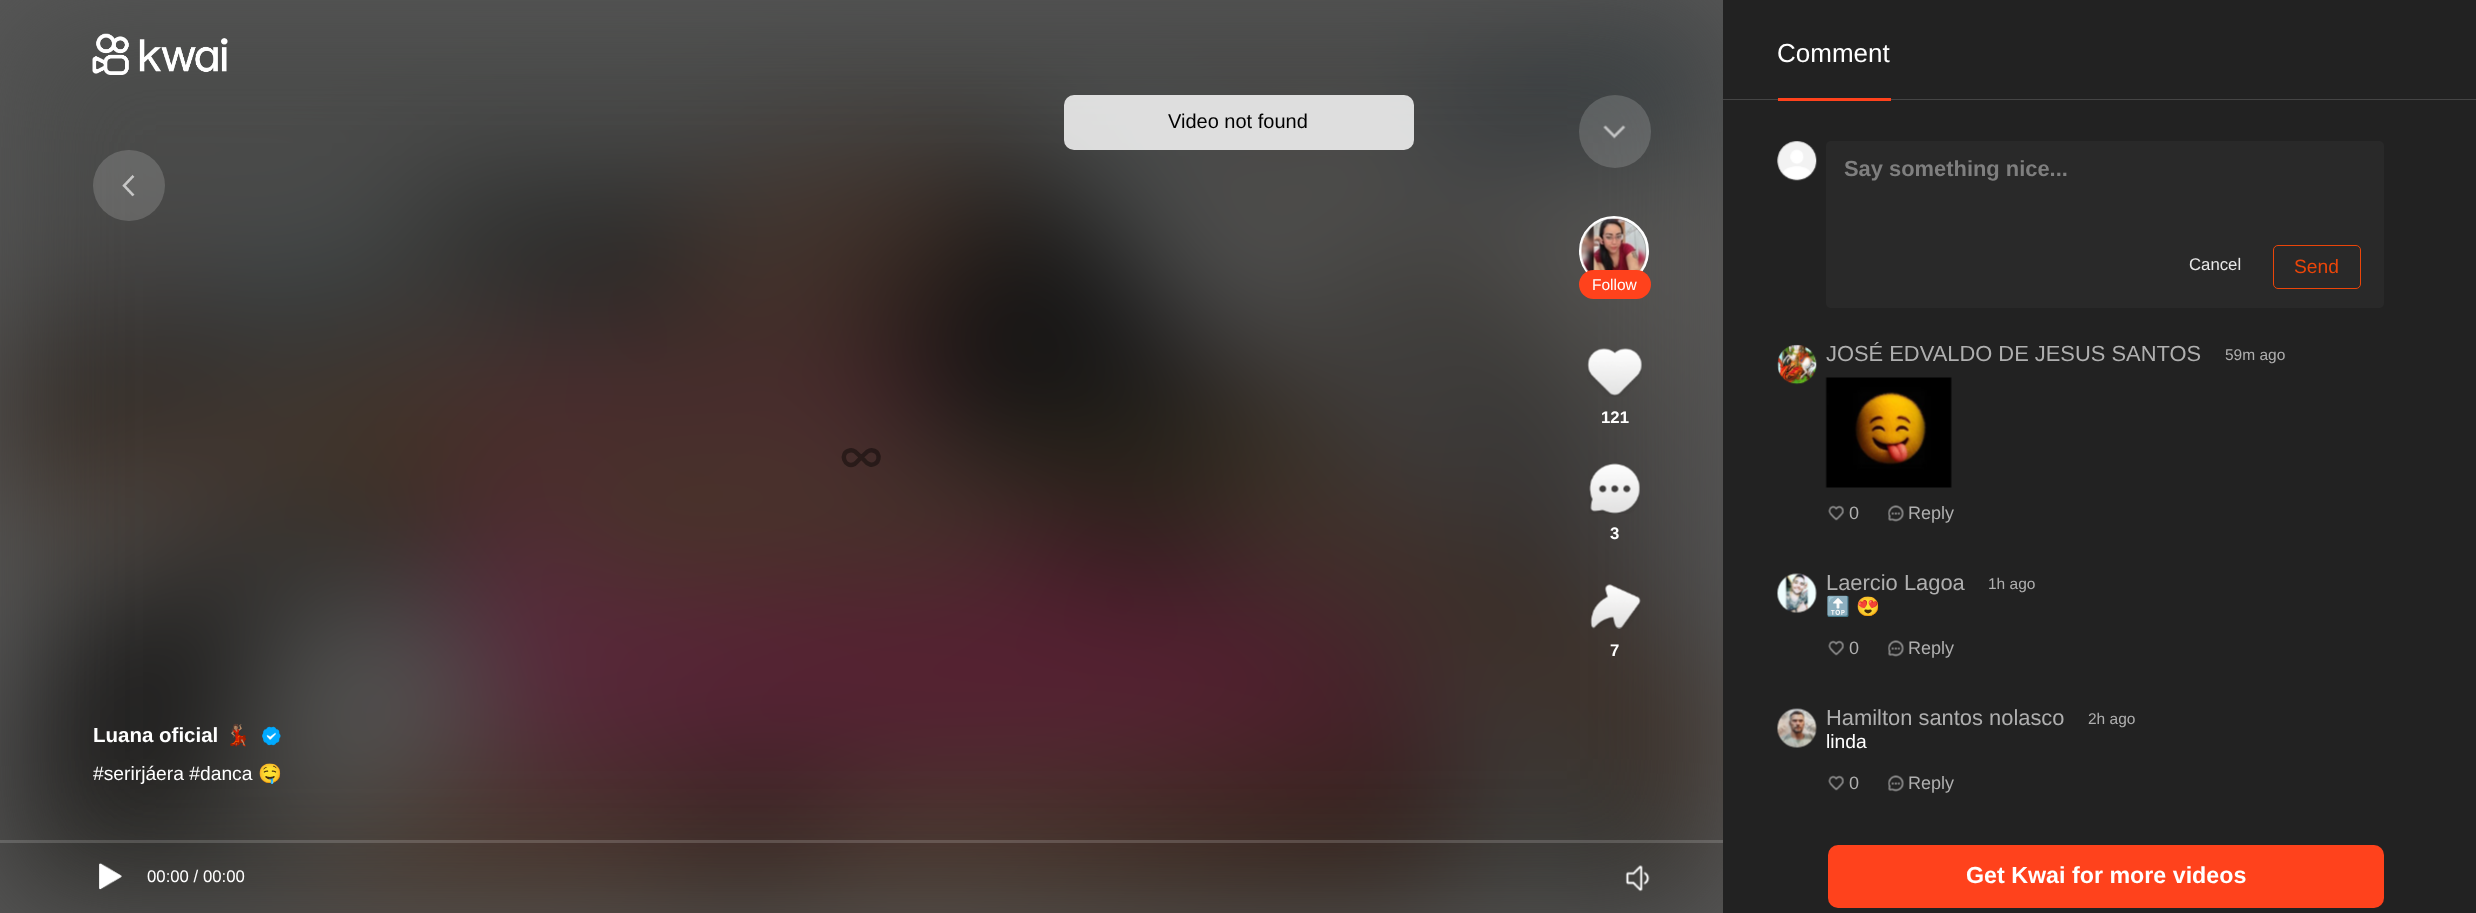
<svg xmlns="http://www.w3.org/2000/svg" width="2476" height="913" viewBox="0 0 2476 913">
  <defs>
    <clipPath id="clip1"><rect x="93" y="763" width="387" height="22"/></clipPath>
  </defs>
  <rect width="100%" height="100%" fill="#585858"/>
  <image x="0" y="0" width="1723" height="913" href="img2.png"/>
  <image x="92" y="33" width="136" height="42" href="img1.png"/>
  <rect x="1579" y="95" width="72" height="73" rx="36" fill="#ffffff" fill-opacity="0.16"/>
  <image x="1603" y="125" width="23" height="14" href="img3.png"/>
  <circle cx="1614" cy="251" r="33.5" fill="none" stroke="#ffffff" stroke-width="3"/>
  <image x="1581" y="218" width="66" height="54" href="img4.png"/>
  <rect x="1579" y="270" width="72" height="29" rx="14.5" fill="#ff421c"/>
  <text x="1592" y="290" font-family="Liberation Sans" font-size="15.5" fill="#ffffff">Follow</text>
  <image x="1587" y="348" width="55" height="49" href="img5.png"/>
  <text x="1601" y="423" font-family="Liberation Sans" font-size="16.75" font-weight="bold" fill="#ffffff">121</text>
  <image x="1589" y="463" width="51" height="51" href="img6.png"/>
  <text x="1610" y="539" font-family="Liberation Sans" font-size="16.75" font-weight="bold" fill="#ffffff">3</text>
  <image x="1590" y="584" width="51" height="45" href="img7.png"/>
  <text x="1610" y="656" font-family="Liberation Sans" font-size="16.75" font-weight="bold" fill="#ffffff">7</text>
  <text x="93" y="742" font-family="Liberation Sans" font-size="20.5" font-weight="bold" fill="#ffffff">Luana oficial</text>
  <text x="225" y="742" font-family="Noto Color Emoji" font-size="20.5" font-weight="bold" fill="#ffffff">💃🏽</text>
  <image x="262" y="726" width="19" height="20" href="img8.png"/>
  <text x="93" y="780" font-family="Liberation Sans" font-size="19.25" fill="#ffffff">#serirjáera #danca</text>
  <g clip-path="url(#clip1)">
    <text x="258" y="780" font-family="Noto Color Emoji" font-size="19.25" fill="#ffffff">🤤</text>
  </g>
  <path d="M861 457.5L867.5 451.5C869 450.5 871 450 873 450.5C882 452 879.5 466.5 870 464.5C867.5 464 866 462.5 864.5 460.5L855 451.5C853.5 450.5 851.5 450 849.5 450.5C839 452.5 844.5 469 854.5 464C857 462.5 859 459.5 861 457.5" fill="none" stroke="#000000" stroke-opacity="0.4" stroke-width="4.4" stroke-linecap="round"/>
  <rect x="0" y="840" width="1723" height="3" fill="#ffffff" fill-opacity="0.16"/>
  <image x="99" y="862" width="23" height="28" href="img9.png"/>
  <text x="147" y="882" font-family="Liberation Sans" font-size="16.75" fill="#ffffff">00:00 / 00:00</text>
  <image x="1625" y="865" width="25" height="27" href="img10.png"/>
  <rect x="1723" y="0" width="753" height="913" fill="#222222"/>
  <rect x="1723" y="99" width="753" height="1" fill="#454545"/>
  <rect x="1778" y="98" width="113" height="3" fill="#ff421c"/>
  <text x="1777" y="62" font-family="Liberation Sans" font-size="26" fill="#ffffff">Comment</text>
  <image x="1777" y="141" width="40" height="40" href="img11.png"/>
  <path d="M1831 141H2379C2382 141 2384 143 2384 146V245H1826V146C1826 143 1828 141 1831 141Z" fill="#292929"/>
  <text x="1844" y="176" font-family="Liberation Sans" font-size="21.9" font-weight="bold" fill="#7f7f7f">Say something nice...</text>
  <path d="M1826 245H2384V303C2384 306 2382 308 2379 308H1831C1828 308 1826 306 1826 303Z" fill="#292929"/>
  <text x="2189" y="270" font-family="Liberation Sans" font-size="16.75" fill="#e8e8e8">Cancel</text>
  <rect x="2273.5" y="245.5" width="87" height="43" rx="4.5" fill="none" stroke="#ea4509"/>
  <text x="2294" y="273" font-family="Liberation Sans" font-size="19.25" fill="#ea4509">Send</text>
  <image x="1777" y="344" width="40" height="41" href="img12.png"/>
  <text x="1826" y="361" font-family="Liberation Sans" font-size="21.9" fill="#afafaf">JOSÉ EDVALDO DE JESUS SANTOS</text>
  <text x="2225" y="360" font-family="Liberation Sans" font-size="15.5" fill="#afafaf">59m ago</text>
  <image x="1825" y="377" width="127" height="111" href="img13.png"/>
  <image x="1828" y="505" width="16" height="16" href="img14.png"/>
  <text x="1849" y="519" font-family="Liberation Sans" font-size="18" fill="#afafaf">0</text>
  <image x="1888" y="505" width="16" height="17" href="img15.png"/>
  <text x="1908" y="519" font-family="Liberation Sans" font-size="18" fill="#afafaf">Reply</text>
  <image x="1777" y="573" width="40" height="40" href="img16.png"/>
  <text x="1826" y="590" font-family="Liberation Sans" font-size="21.9" fill="#afafaf">Laercio Lagoa</text>
  <text x="1988" y="589" font-family="Liberation Sans" font-size="15.5" fill="#afafaf">1h ago</text>
  <text x="1826" y="613" font-family="Noto Color Emoji" font-size="19.25" fill="#ffffff">🔝</text>
  <text x="1856" y="613" font-family="Noto Color Emoji" font-size="19.25" fill="#ffffff">😍</text>
  <image x="1828" y="640" width="16" height="16" href="img14.png"/>
  <text x="1849" y="654" font-family="Liberation Sans" font-size="18" fill="#afafaf">0</text>
  <image x="1888" y="640" width="16" height="17" href="img15.png"/>
  <text x="1908" y="654" font-family="Liberation Sans" font-size="18" fill="#afafaf">Reply</text>
  <image x="1777" y="708" width="40" height="40" href="img17.png"/>
  <text x="1826" y="725" font-family="Liberation Sans" font-size="21.9" fill="#afafaf">Hamilton santos nolasco</text>
  <text x="2088" y="724" font-family="Liberation Sans" font-size="15.5" fill="#afafaf">2h ago</text>
  <text x="1826" y="748" font-family="Liberation Sans" font-size="19.25" fill="#ffffff">linda</text>
  <image x="1828" y="775" width="16" height="16" href="img14.png"/>
  <text x="1849" y="789" font-family="Liberation Sans" font-size="18" fill="#afafaf">0</text>
  <image x="1888" y="775" width="16" height="17" href="img15.png"/>
  <text x="1908" y="789" font-family="Liberation Sans" font-size="18" fill="#afafaf">Reply</text>
  <rect x="1828" y="845" width="556" height="63" rx="10" fill="#ff421c"/>
  <text x="1966" y="883" font-family="Liberation Sans" font-size="23.25" font-weight="bold" fill="#ffffff">Get Kwai for more videos</text>
  <rect x="93" y="150" width="72" height="71" rx="35.5" fill="#ffffff" fill-opacity="0.16"/>
  <image x="122" y="174" width="13" height="23" href="img18.png"/>
  <rect x="1064" y="95" width="350" height="55" rx="10" fill="#ffffff" fill-opacity="0.82"/>
  <text x="1168" y="128" font-family="Liberation Sans" font-size="20" fill="#000000">Video not found</text>
</svg>
